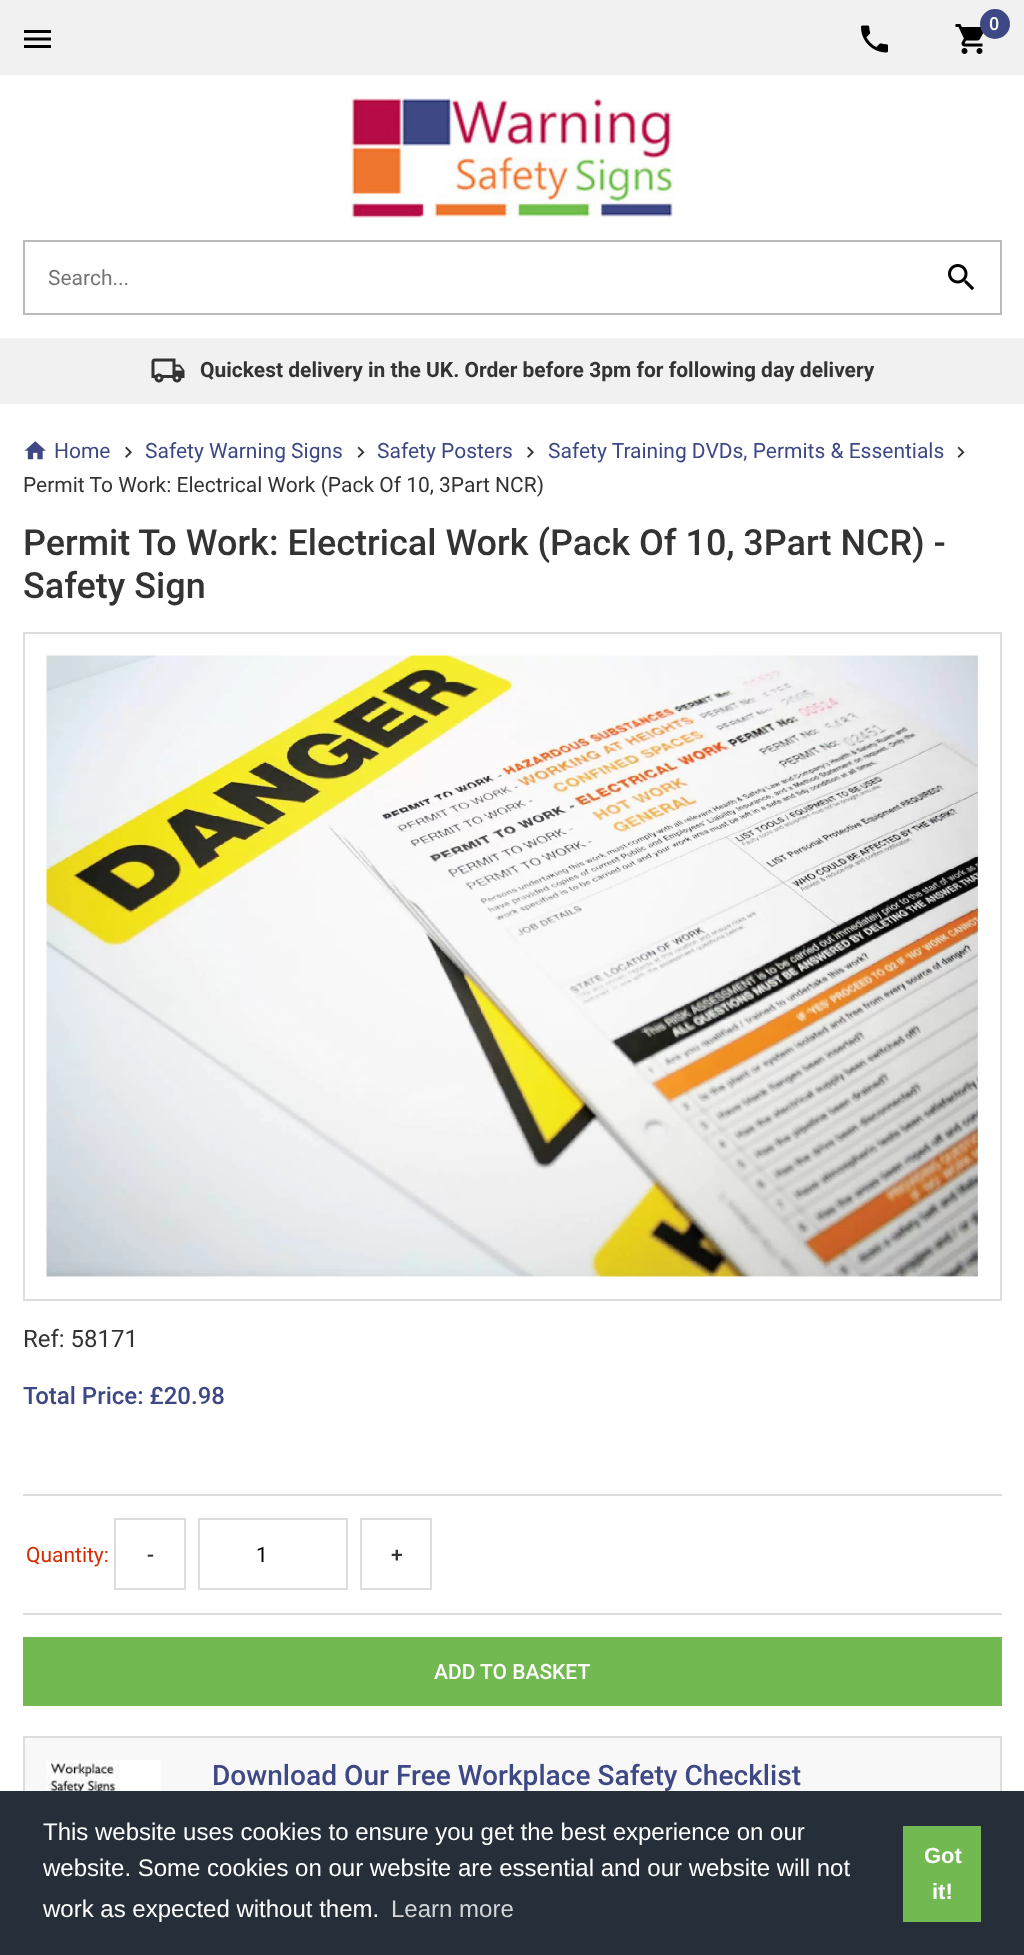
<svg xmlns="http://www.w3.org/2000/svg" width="1024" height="1955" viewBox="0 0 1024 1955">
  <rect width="100%" height="100%" fill="#ffffff"/>
  <rect x="0" y="0" width="1024" height="75" fill="#f1f1f1"/>
  <image x="24" y="30" width="27" height="18" href="img1.png"/>
  <image x="861" y="25" width="27" height="28" href="img2.png"/>
  <image x="955" y="24" width="29" height="30" href="img3.png"/>
  <circle cx="995" cy="24" r="15" fill="#3e4885"/>
  <text x="989" y="30" font-family="Roboto" font-size="18" font-weight="500" fill="#ffffff">0</text>
  <image x="351" y="97" width="323" height="121" href="img4.png"/>
  <rect x="24" y="241" width="977" height="73" fill="none" stroke="#bbbbbb" stroke-width="2"/>
  <text x="48" y="285" font-family="Roboto" font-size="21" fill="#757575">Search...</text>
  <image x="948" y="264" width="27" height="27" href="img5.png"/>
  <rect x="0" y="338" width="1024" height="66" fill="#f1f1f1"/>
  <image x="151" y="358" width="34" height="25" href="img6.png"/>
  <text x="200" y="377" font-family="Roboto" font-size="21" font-weight="bold" fill="#333333">Quickest delivery in the UK. Order before 3pm for following day delivery</text>
  <image x="24" y="441" width="22" height="19" href="img7.png"/>
  <text x="54" y="458" font-family="Roboto" font-size="21" fill="#3e4885">Home</text>
  <image x="125" y="446" width="7" height="12" href="img8.png"/>
  <text x="145" y="458" font-family="Roboto" font-size="21" fill="#3e4885">Safety Warning Signs</text>
  <image x="357" y="446" width="8" height="12" href="img9.png"/>
  <text x="377" y="458" font-family="Roboto" font-size="21" fill="#3e4885">Safety Posters</text>
  <image x="527" y="446" width="7" height="12" href="img8.png"/>
  <text x="548" y="458" font-family="Roboto" font-size="21" fill="#3e4885">Safety Training DVDs, Permits &amp; Essentials</text>
  <image x="957" y="446" width="8" height="12" href="img9.png"/>
  <text x="23" y="492" font-family="Roboto" font-size="21" fill="#333333">Permit To Work: Electrical Work (Pack Of 10, 3Part NCR)</text>
  <text x="23" y="555" font-family="Roboto" font-size="36" font-weight="500" fill="#333333">Permit To Work: Electrical Work (Pack Of 10, 3Part NCR) -</text>
  <text x="23" y="598" font-family="Roboto" font-size="36" font-weight="500" fill="#333333">Safety Sign</text>
  <rect x="24" y="633" width="977" height="667" fill="none" stroke="#dddddd" stroke-width="2"/>
  <image x="46" y="655" width="932" height="622" href="img10.png"/>
  <text x="23" y="1347" font-family="Roboto" font-size="24" fill="#333333">Ref: 58171</text>
  <text x="23" y="1404" font-family="Roboto" font-size="24" font-weight="500" fill="#3e4885">Total Price: £20.98</text>
  <rect x="23" y="1494" width="979" height="2" fill="#dddddd"/>
  <text x="26" y="1562" font-family="Roboto" font-size="21" fill="#d72b00">Quantity:</text>
  <rect x="115" y="1519" width="70" height="70" fill="none" stroke="#dddddd" stroke-width="2"/>
  <text x="147" y="1562" font-family="Roboto" font-size="21" font-weight="500" fill="#333333">-</text>
  <rect x="199" y="1519" width="148" height="70" fill="none" stroke="#dddddd" stroke-width="2"/>
  <text x="256" y="1562" font-family="Roboto" font-size="21" fill="#000000">1</text>
  <rect x="361" y="1519" width="70" height="70" fill="none" stroke="#dddddd" stroke-width="2"/>
  <text x="391" y="1562" font-family="Roboto" font-size="21" font-weight="500" fill="#333333">+</text>
  <rect x="23" y="1613" width="979" height="2" fill="#dddddd"/>
  <rect x="23" y="1637" width="979" height="69" fill="#72b952"/>
  <text x="434" y="1679" font-family="Roboto" font-size="21" font-weight="500" fill="#ffffff">ADD TO BASKET</text>
  <rect x="25" y="1738" width="975" height="53" fill="#f8f8f8"/>
  <rect x="24" y="1737" width="977" height="196" fill="none" stroke="#dddddd" stroke-width="2"/>
  <image x="46" y="1760" width="115" height="31" href="img11.png"/>
  <text x="212" y="1785" font-family="Roboto" font-size="28.1" font-weight="500" fill="#3e4885">Download Our Free Workplace Safety Checklist</text>
  <rect x="0" y="1791" width="1024" height="164" fill="#252e39"/>
  <text x="43" y="1840" font-family="Liberation Sans" font-size="24" fill="#ffffff">This website uses cookies to ensure you get the best experience on our</text>
  <text x="43" y="1876" font-family="Liberation Sans" font-size="24" fill="#ffffff">website. Some cookies on our website are essential and our website will not</text>
  <text x="43" y="1917" font-family="Liberation Sans" font-size="24" fill="#ffffff">work as expected without them.</text>
  <text x="391" y="1917" font-family="Liberation Sans" font-size="24" fill="#d3d5d7">Learn more</text>
  <rect x="903" y="1826" width="78" height="96" fill="#72b952"/>
  <text x="924" y="1863" font-family="Liberation Sans" font-size="22" font-weight="bold" fill="#ffffff">Got</text>
  <text x="932" y="1899" font-family="Liberation Sans" font-size="22" font-weight="bold" fill="#ffffff">it!</text>
</svg>
